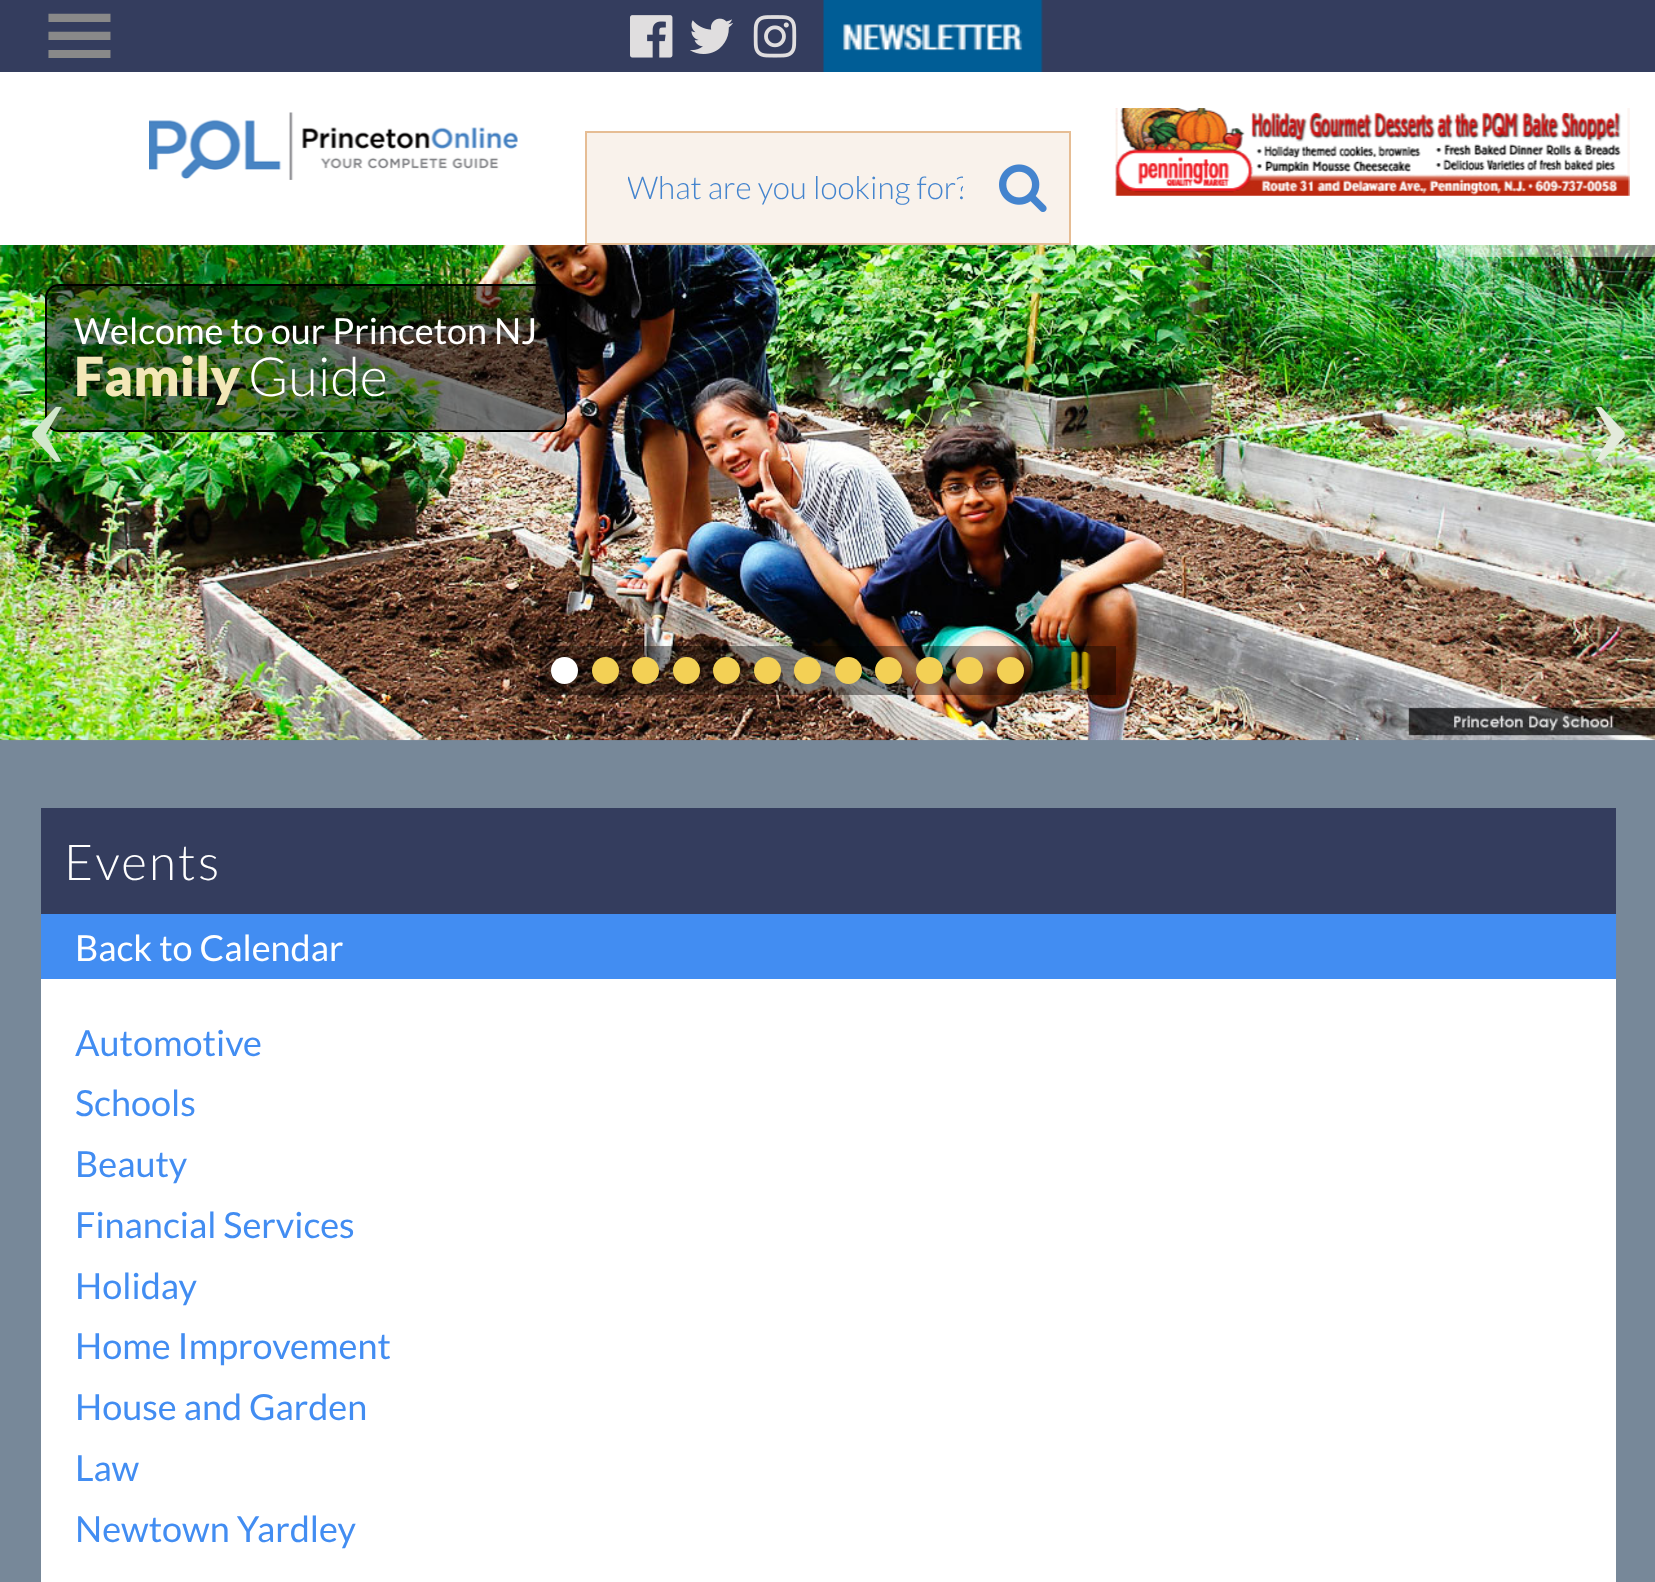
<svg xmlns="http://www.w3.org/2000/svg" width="1655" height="1582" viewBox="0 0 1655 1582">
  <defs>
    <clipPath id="clip1"><rect x="628" y="169" width="335" height="38"/></clipPath>
  </defs>
  <rect width="100%" height="100%" fill="#778899"/>
  <rect x="0" y="0" width="1655" height="72" fill="#343d5e"/>
  <text x="38" y="67" font-family="DejaVu Sans" font-size="99" fill="#898989">≡</text>
  <rect x="0" y="72" width="1655" height="173" fill="#ffffff"/>
  <image x="630" y="15" width="43" height="43" href="img1.png"/>
  <image x="690" y="18" width="43" height="36" href="img2.png"/>
  <image x="753" y="15" width="44" height="43" href="img3.png"/>
  <image x="823" y="0" width="220" height="72" href="img4.png"/>
  <image x="149" y="112" width="369" height="68" href="img5.png"/>
  <image x="1115" y="108" width="515" height="88" href="img6.png"/>
  <rect x="586" y="132" width="484" height="112" fill="#f9f2eb" stroke="#e6bd94" stroke-width="2"/>
  <g clip-path="url(#clip1)">
    <text x="627" y="199" font-family="Lato" font-size="31.5" font-weight="300" fill="#4484ce">What are you looking for?</text>
  </g>
  <image x="999" y="164" width="48" height="48" href="img7.png"/>
  <image x="0" y="245" width="1655" height="496" href="img8.png"/>
  <rect x="1465" y="245" width="190" height="12" fill="#ffffff" fill-opacity="0.5"/>
  <rect x="46" y="285" width="520" height="146" rx="13" fill="#000000" fill-opacity="0.5" stroke="#000000" stroke-width="2"/>
  <text x="74" y="344" font-family="Lato" font-size="36" fill="#ffffff">Welcome to our Princeton NJ</text>
  <text x="74" y="396" font-family="Lato" font-size="54" font-weight="900" fill="#f3e7b7">Family</text>
  <text x="248" y="396" font-family="Lato" font-size="54" font-weight="300" fill="#ffffff">Guide</text>
  <text x="23" y="467" font-family="Liberation Serif" font-size="144" fill="#d1e7cb">‹</text>
  <text x="1586" y="467" font-family="Liberation Serif" font-size="144" fill="#e3eadb">›</text>
  <rect x="540" y="646" width="576" height="49" fill="#000000" fill-opacity="0.4"/>
  <circle cx="564.5" cy="670.5" r="13.5" fill="#ffffff"/>
  <circle cx="605.5" cy="670.5" r="13.5" fill="#f3d055"/>
  <circle cx="645.5" cy="670.5" r="13.5" fill="#f3d055"/>
  <circle cx="686.5" cy="670.5" r="13.5" fill="#f3d055"/>
  <circle cx="726.5" cy="670.5" r="13.5" fill="#f3d055"/>
  <circle cx="767.5" cy="670.5" r="13.5" fill="#f3d055"/>
  <circle cx="807.5" cy="670.5" r="13.5" fill="#f3d055"/>
  <circle cx="848.5" cy="670.5" r="13.5" fill="#f3d055"/>
  <circle cx="888.5" cy="670.5" r="13.5" fill="#f3d055"/>
  <circle cx="929.5" cy="670.5" r="13.5" fill="#f3d055"/>
  <circle cx="969.5" cy="670.5" r="13.5" fill="#f3d055"/>
  <circle cx="1010.5" cy="670.5" r="13.5" fill="#f3d055"/>
  <image x="1071" y="651" width="20" height="40" href="img9.png"/>
  <rect x="41" y="808" width="1575" height="106" fill="#343d5e"/>
  <text x="64" y="880" font-family="Lato" font-size="49.5" font-weight="300" letter-spacing="2.25" fill="#ffffff">Events</text>
  <rect x="41" y="914" width="1575" height="65" fill="#428df2"/>
  <text x="75" y="961" font-family="Lato" font-size="36" fill="#ffffff">Back to Calendar</text>
  <rect x="41" y="979" width="1575" height="603" fill="#ffffff"/>
  <text x="75" y="1056" font-family="Lato" font-size="36" fill="#428df2">Automotive</text>
  <text x="75" y="1116" font-family="Lato" font-size="36" fill="#428df2">Schools</text>
  <text x="75" y="1177" font-family="Lato" font-size="36" fill="#428df2">Beauty</text>
  <text x="75" y="1238" font-family="Lato" font-size="36" fill="#428df2">Financial Services</text>
  <text x="75" y="1299" font-family="Lato" font-size="36" fill="#428df2">Holiday</text>
  <text x="75" y="1359" font-family="Lato" font-size="36" fill="#428df2">Home Improvement</text>
  <text x="75" y="1420" font-family="Lato" font-size="36" fill="#428df2">House and Garden</text>
  <text x="75" y="1481" font-family="Lato" font-size="36" fill="#428df2">Law</text>
  <text x="75" y="1542" font-family="Lato" font-size="36" fill="#428df2">Newtown Yardley</text>
</svg>
